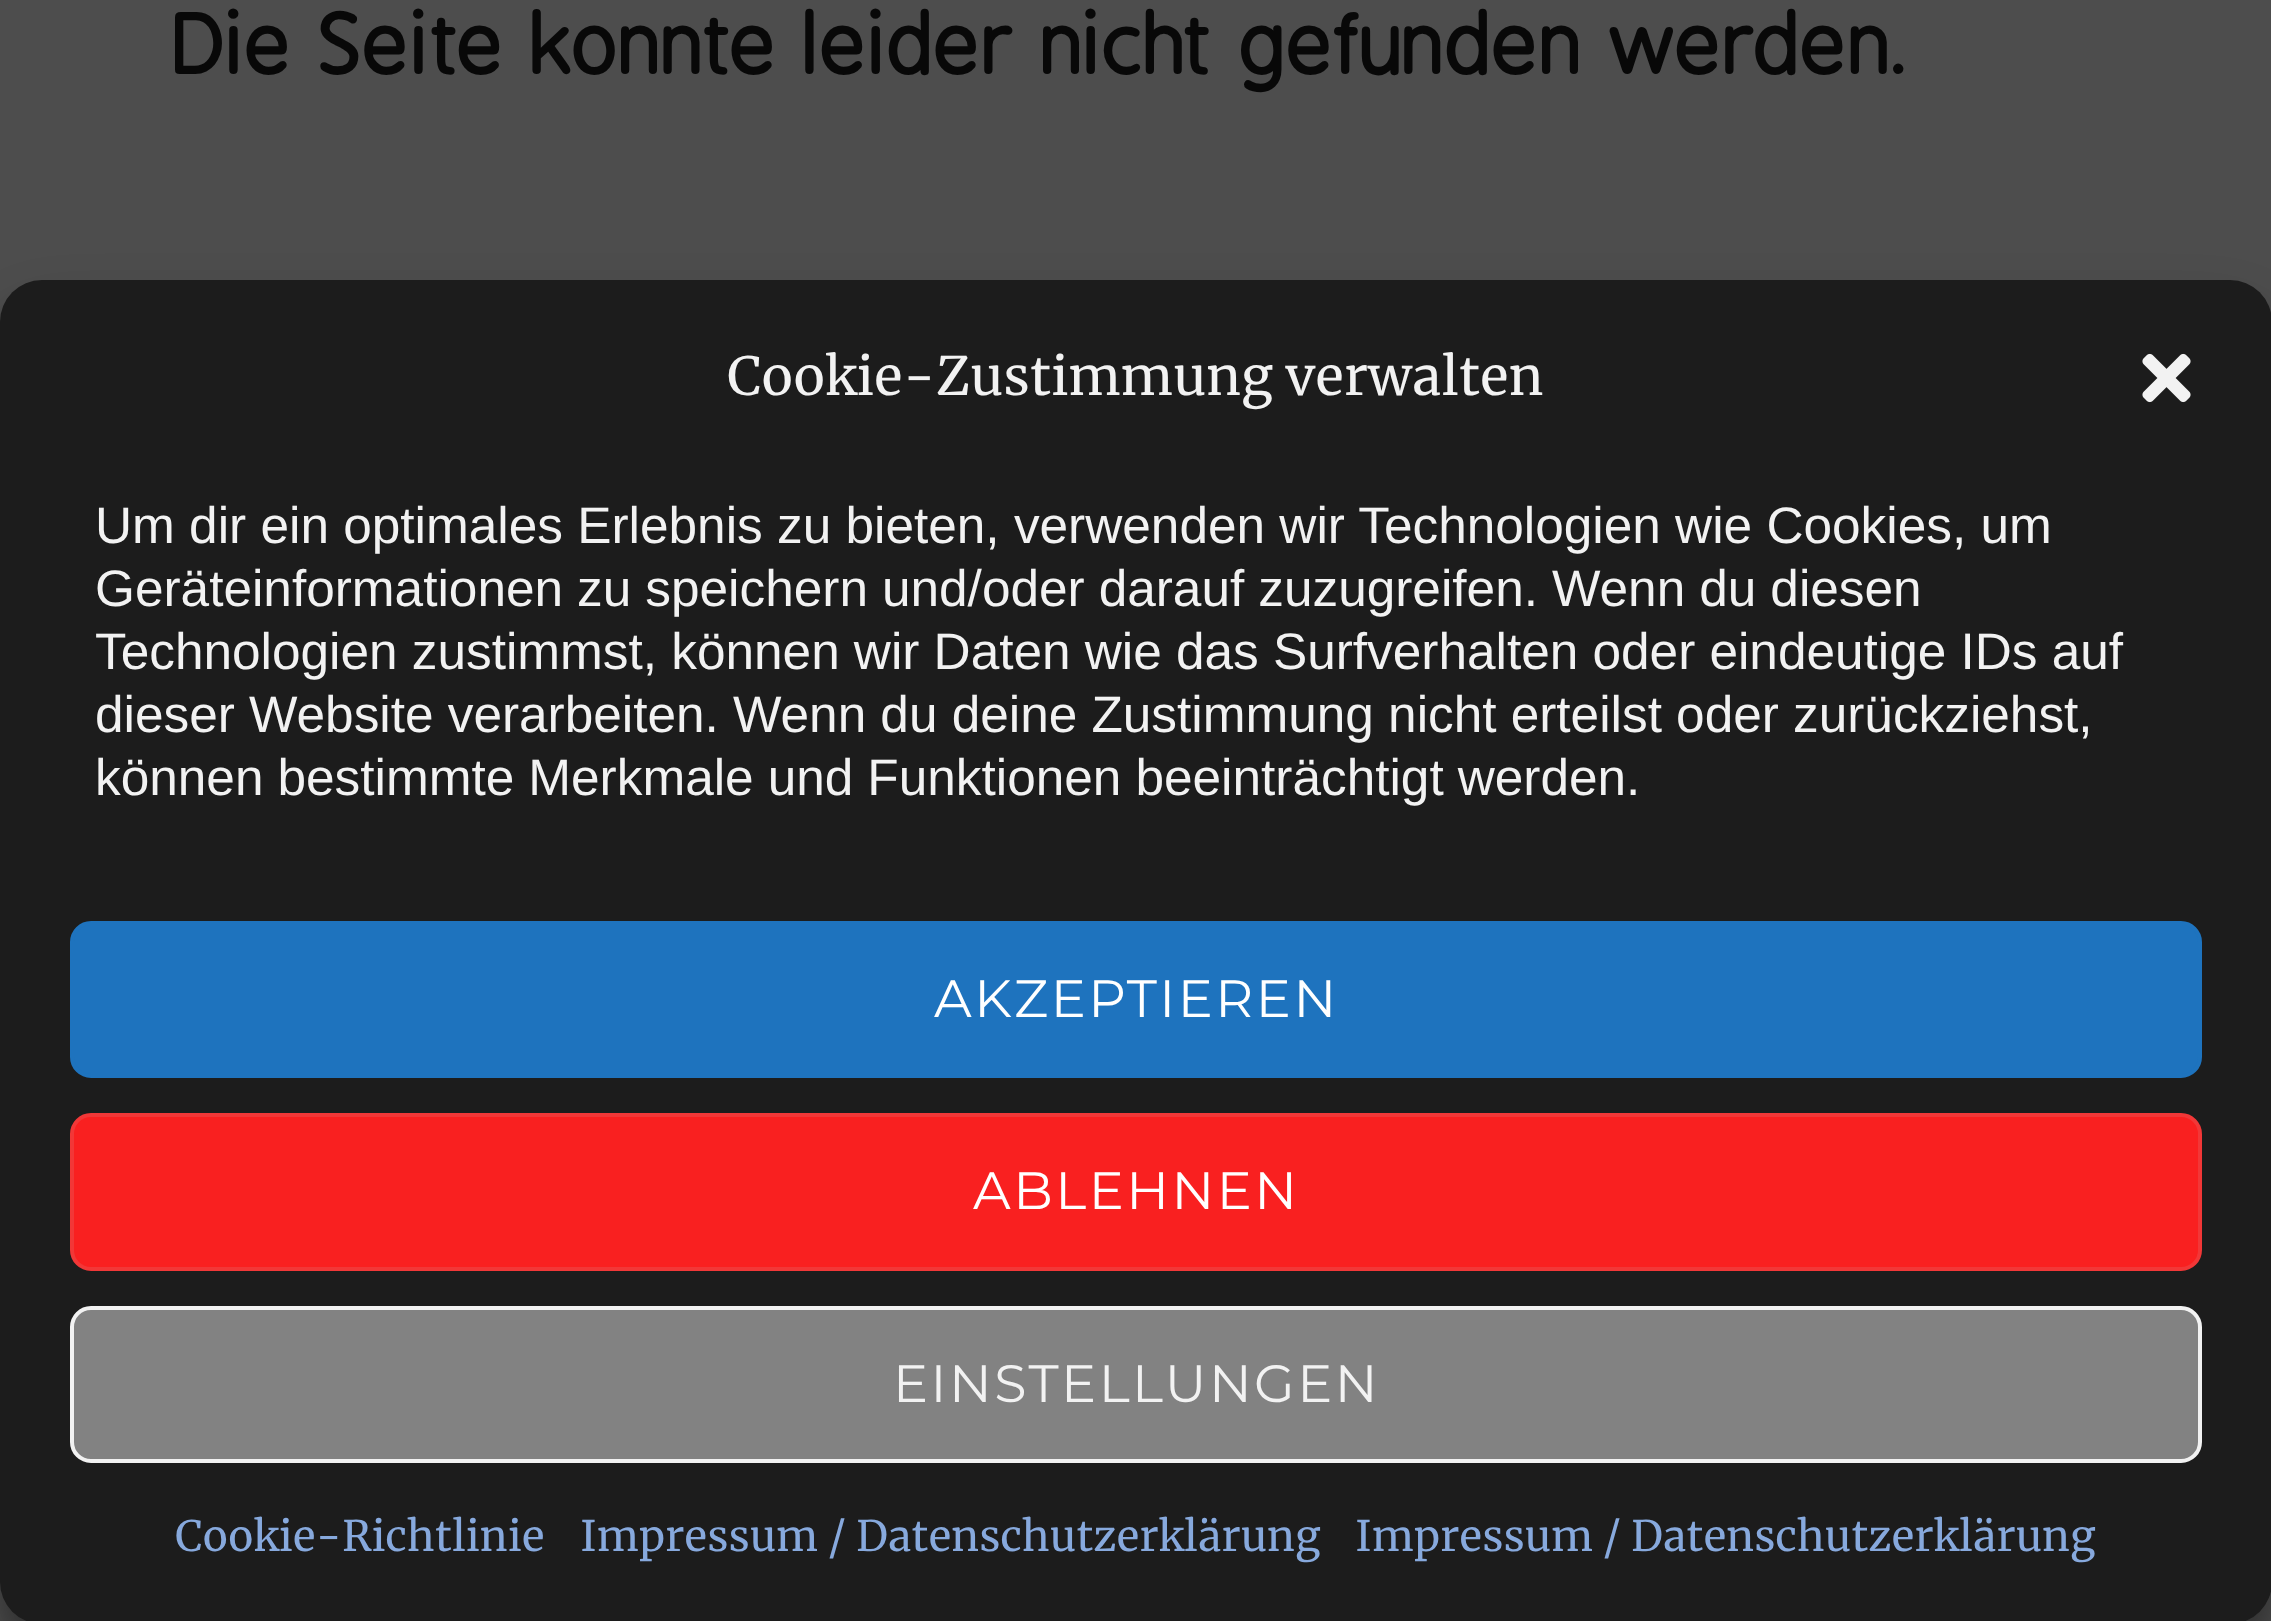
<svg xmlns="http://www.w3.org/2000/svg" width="2271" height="1621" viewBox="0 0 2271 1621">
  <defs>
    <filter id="blur1" x="-50%" y="-200%" width="200%" height="500%"><feGaussianBlur stdDeviation="10.5"/></filter>
    <filter id="blur2" x="-50%" y="-200%" width="200%" height="500%"><feGaussianBlur stdDeviation="35"/></filter>
  </defs>
  <rect width="100%" height="100%" fill="#4d4d4d"/>
  <text x="175" y="74" font-family="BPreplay" font-size="80.5" font-weight="bold" fill="#080808">Die Seite konnte leider nicht gefunden werden.</text>
  <rect x="0" y="301" width="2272" height="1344" rx="42" fill="#000000" fill-opacity="0.23" filter="url(#blur1)"/>
  <rect x="0" y="315" width="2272" height="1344" rx="42" fill="#000000" fill-opacity="0.19" filter="url(#blur2)"/>
  <rect x="0" y="280" width="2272" height="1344" rx="42" fill="#1c1c1c"/>
  <text x="727" y="395" font-family="Merriweather" font-size="52.5" fill="#f2f2f2">Cookie-Zustimmung verwalten</text>
  <image x="2142" y="353" width="49" height="50" href="img1.png"/>
  <text x="95" y="543" font-family="Liberation Sans" font-size="51.35" fill="#f2f2f2">Um dir ein optimales Erlebnis zu bieten, verwenden wir Technologien wie Cookies, um</text>
  <text x="95" y="606" word-spacing="-0.25" font-family="Liberation Sans" font-size="51.35" fill="#f2f2f2">Geräteinformationen zu speichern und/oder darauf zuzugreifen. Wenn du diesen</text>
  <text x="95" y="669" word-spacing="-0.1" font-family="Liberation Sans" font-size="51.35" fill="#f2f2f2">Technologien zustimmst, können wir Daten wie das Surfverhalten oder eindeutige IDs auf</text>
  <text x="95" y="732" word-spacing="-0.1" font-family="Liberation Sans" font-size="51.35" fill="#f2f2f2">dieser Website verarbeiten. Wenn du deine Zustimmung nicht erteilst oder zurückziehst,</text>
  <text x="95" y="795" word-spacing="-0.25" font-family="Liberation Sans" font-size="51.35" fill="#f2f2f2">können bestimmte Merkmale und Funktionen beeinträchtigt werden.</text>
  <rect x="72" y="923" width="2128" height="153" rx="19" fill="#1e73be" stroke="#1e73be" stroke-width="4"/>
  <text x="934" y="1017" font-family="Montserrat" font-size="52.5" font-weight="100" letter-spacing="2.5" fill="#ffffff">AKZEPTIEREN</text>
  <rect x="72" y="1115" width="2128" height="154" rx="19" fill="#f92020" stroke="#f23737" stroke-width="4"/>
  <text x="973" y="1209" font-family="Montserrat" font-size="52.5" font-weight="100" letter-spacing="2.5" fill="#ffffff">ABLEHNEN</text>
  <rect x="72" y="1308" width="2128" height="153" rx="19" fill="#828282" stroke="#f2f2f2" stroke-width="4"/>
  <text x="893" y="1402" font-family="Montserrat" font-size="52.5" font-weight="100" letter-spacing="2.5" fill="#f2f2f2">EINSTELLUNGEN</text>
  <text x="175" y="1551" font-family="Merriweather" font-size="42" fill="#87a9dd">Cookie-Richtlinie</text>
  <text x="580" y="1551" font-family="Merriweather" font-size="42" fill="#87a9dd">Impressum / Datenschutzerklärung</text>
  <text x="1355" y="1551" font-family="Merriweather" font-size="42" fill="#87a9dd">Impressum / Datenschutzerklärung</text>
</svg>
